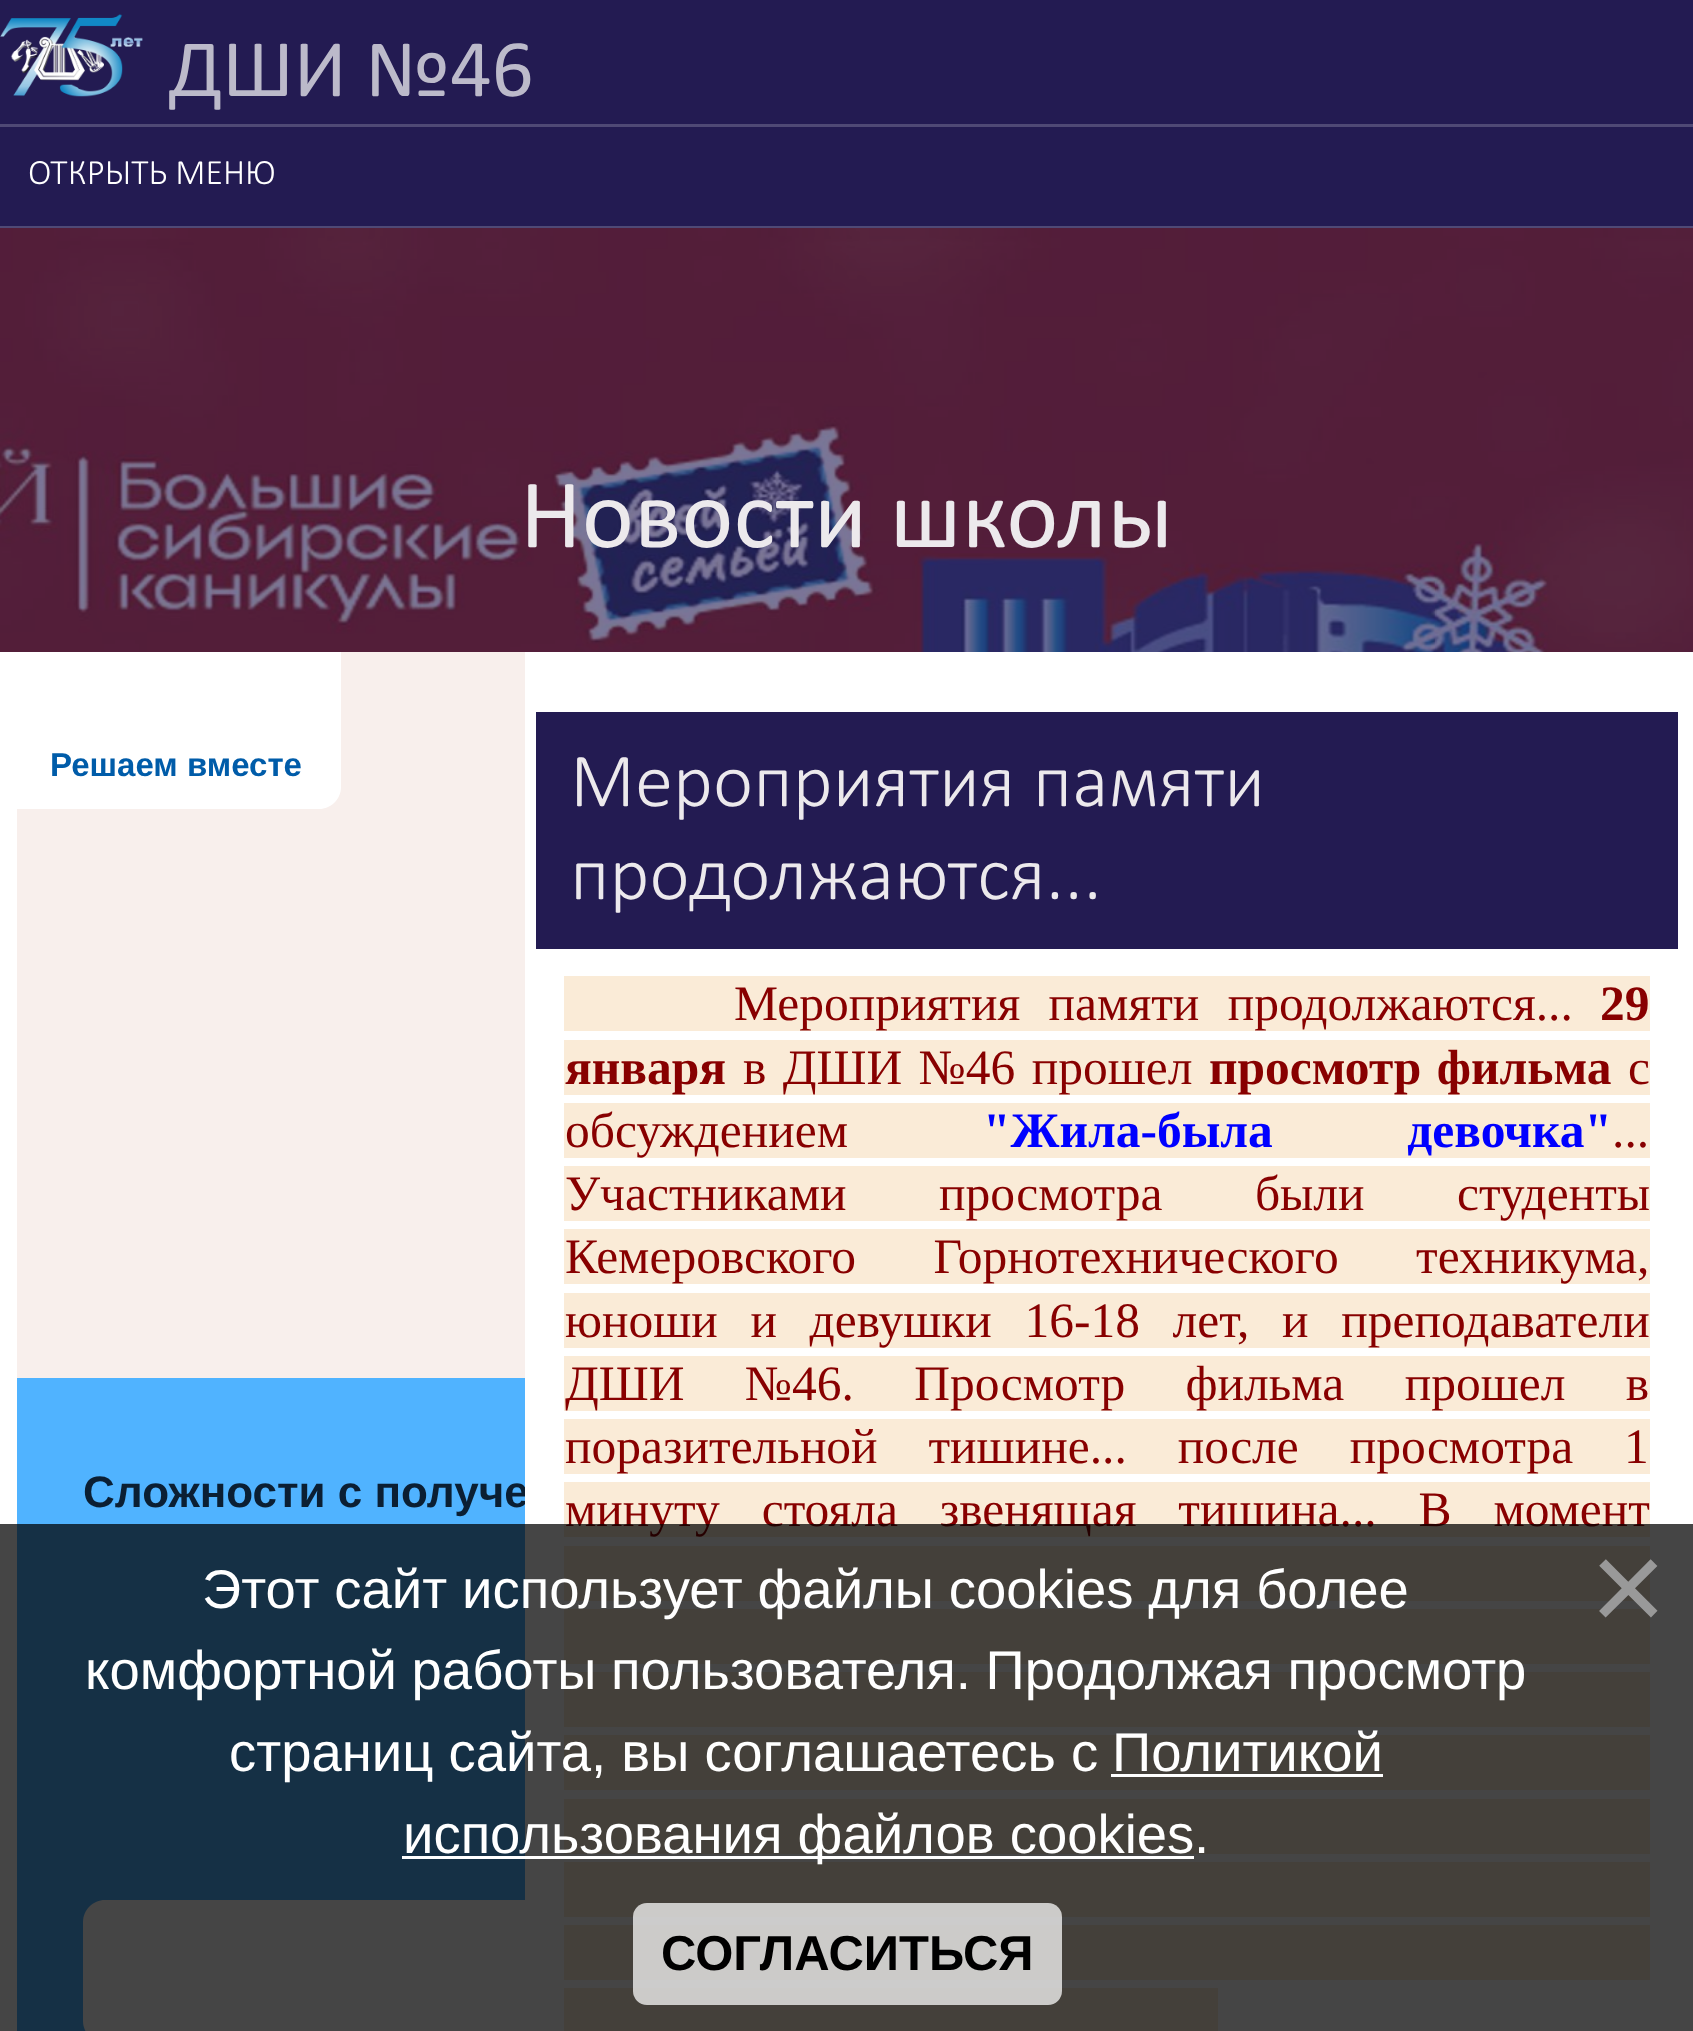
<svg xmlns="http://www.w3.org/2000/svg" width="1693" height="2031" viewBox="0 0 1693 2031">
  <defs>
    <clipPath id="clip1"><rect x="17" y="652" width="508" height="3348"/></clipPath>
  </defs>
  <rect width="100%" height="100%" fill="#231b52"/>
  <image x="0" y="14" width="143" height="83" href="img1.png"/>
  <text x="169" y="96" font-family="Calibri" font-size="82.5" fill="#bcbaca">ДШИ №46</text>
  <rect x="0" y="124" width="1693" height="3" fill="#4f4975"/>
  <rect x="0" y="226" width="1693" height="2" fill="#4f4975"/>
  <text x="28" y="184" font-family="Calibri" font-size="35.75" font-weight="300" fill="#ffffff">ОТКРЫТЬ МЕНЮ</text>
  <image x="0" y="228" width="1693" height="424" href="img2.png"/>
  <text x="520" y="547" font-family="Calibri" font-size="99" fill="#ece9ec">Новости школы</text>
  <rect x="0" y="652" width="1693" height="1379" fill="#ffffff"/>
  <rect x="17" y="1378" width="508" height="653" fill="#50b3ff"/>
  <rect x="17" y="652" width="508" height="726" fill="#f8efec"/>
  <path d="M17 652H341V787C341 799 331 809 319 809H17Z" fill="#ffffff"/>
  <text x="50" y="776" font-family="Liberation Sans" font-size="33" font-weight="bold" fill="#005ca9">Решаем вместе</text>
  <g clip-path="url(#clip1)">
    <text x="83" y="1507" font-family="Liberation Sans" font-size="44" font-weight="bold" fill="#0b1f33">Сложности с получе</text>
  </g>
  <path d="M105 1900H525V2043H105C93 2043 83 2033 83 2021V1922C83 1910 93 1900 105 1900Z" fill="#ffffff"/>
  <rect x="536" y="712" width="1142" height="237" fill="#231b52"/>
  <text x="570" y="806" font-family="Calibri" font-size="77" font-weight="300" fill="#ece9ec">Мероприятия памяти</text>
  <text x="570" y="899" font-family="Calibri" font-size="77" font-weight="300" fill="#ece9ec">продолжаются...</text>
  <rect x="564" y="976" width="1086" height="55" fill="#faebd7"/>
  <text x="734" y="1020" word-spacing="16" font-family="Liberation Serif" font-size="49.5" fill="#880000">Мероприятия памяти продолжаются...</text>
  <text x="1600" y="1020" font-family="Liberation Serif" font-size="49.5" font-weight="bold" fill="#880000">29</text>
  <rect x="564" y="1040" width="1086" height="55" fill="#faebd7"/>
  <text x="565" y="1084" font-family="Liberation Serif" font-size="49.5" font-weight="bold" fill="#880000">января</text>
  <text x="743" y="1084" word-spacing="4" font-family="Liberation Serif" font-size="49.5" fill="#880000">в ДШИ №46 прошел</text>
  <text x="1209" y="1084" word-spacing="3" font-family="Liberation Serif" font-size="49.5" font-weight="bold" fill="#880000">просмотр фильма</text>
  <text x="1628" y="1084" font-family="Liberation Serif" font-size="49.5" fill="#880000">с</text>
  <rect x="564" y="1103" width="1086" height="55" fill="#faebd7"/>
  <text x="565" y="1147" font-family="Liberation Serif" font-size="49.5" fill="#880000">обсуждением</text>
  <text x="983" y="1147" word-spacing="122" font-family="Liberation Serif" font-size="49.5" font-weight="bold" fill="#0000ff">"Жила-была девочка"</text>
  <text x="1612" y="1147" font-family="Liberation Serif" font-size="49.5" fill="#880000">...</text>
  <rect x="564" y="1166" width="1086" height="55" fill="#faebd7"/>
  <text x="565" y="1210" word-spacing="80" font-family="Liberation Serif" font-size="49.5" fill="#880000">Участниками просмотра были студенты</text>
  <rect x="564" y="1229" width="1086" height="55" fill="#faebd7"/>
  <text x="565" y="1273" word-spacing="65" font-family="Liberation Serif" font-size="49.5" fill="#880000">Кемеровского Горнотехнического техникума,</text>
  <rect x="564" y="1293" width="1086" height="55" fill="#faebd7"/>
  <text x="565" y="1337" word-spacing="20.25" font-family="Liberation Serif" font-size="49.5" fill="#880000">юноши и девушки 16-18 лет, и преподаватели</text>
  <rect x="564" y="1356" width="1086" height="55" fill="#faebd7"/>
  <text x="565" y="1400" word-spacing="48" font-family="Liberation Serif" font-size="49.5" fill="#880000">ДШИ №46. Просмотр фильма прошел в</text>
  <rect x="564" y="1419" width="1086" height="55" fill="#faebd7"/>
  <text x="565" y="1463" word-spacing="38.5" font-family="Liberation Serif" font-size="49.5" fill="#880000">поразительной тишине... после просмотра 1</text>
  <rect x="564" y="1482" width="1086" height="55" fill="#faebd7"/>
  <text x="565" y="1526" word-spacing="29.5" font-family="Liberation Serif" font-size="49.5" fill="#880000">минуту стояла звенящая тишина... В момент</text>
  <rect x="564" y="1546" width="1086" height="55" fill="#faebd7"/>
  <rect x="564" y="1609" width="1086" height="55" fill="#faebd7"/>
  <rect x="564" y="1672" width="1086" height="55" fill="#faebd7"/>
  <rect x="564" y="1735" width="1086" height="55" fill="#faebd7"/>
  <rect x="564" y="1799" width="1086" height="55" fill="#faebd7"/>
  <rect x="564" y="1862" width="1086" height="55" fill="#faebd7"/>
  <rect x="564" y="1925" width="1086" height="55" fill="#faebd7"/>
  <rect x="564" y="1988" width="654" height="43" fill="#faebd7"/>
  <rect x="0" y="1524" width="1693" height="507" fill="#000000" fill-opacity="0.73"/>
  <text x="1590" y="1632" font-family="Liberation Sans" font-size="131" fill="#999999">×</text>
  <rect x="633" y="1903" width="429" height="102" rx="14" fill="#ffffff" fill-opacity="0.73"/>
  <text x="661" y="1970" font-family="Liberation Sans" font-size="49" font-weight="bold" fill="#000000">СОГЛАСИТЬСЯ</text>
  <text x="202" y="1608" word-spacing="-0.25" font-family="Liberation Sans" font-size="54.45" fill="#ffffff">Этот сайт использует файлы cookies для более</text>
  <text x="85" y="1689" word-spacing="-0.5" font-family="Liberation Sans" font-size="54.45" fill="#ffffff">комфортной работы пользователя. Продолжая просмотр</text>
  <text x="229" y="1771" font-family="Liberation Sans" font-size="54.45" fill="#ffffff">страниц сайта, вы соглашаетесь с</text>
  <text x="1112" y="1771" font-family="Liberation Sans" font-size="54.45" fill="#ffffff">Политикой</text>
  <rect x="1111" y="1774" width="272" height="3" fill="#ffffff"/>
  <rect x="402" y="1856" width="792" height="3" fill="#ffffff"/>
  <text x="403" y="1853" font-family="Liberation Sans" font-size="54.45" fill="#ffffff">использования файлов cookies</text>
  <text x="1194" y="1853" font-family="Liberation Sans" font-size="54.45" fill="#ffffff">.</text>
</svg>
